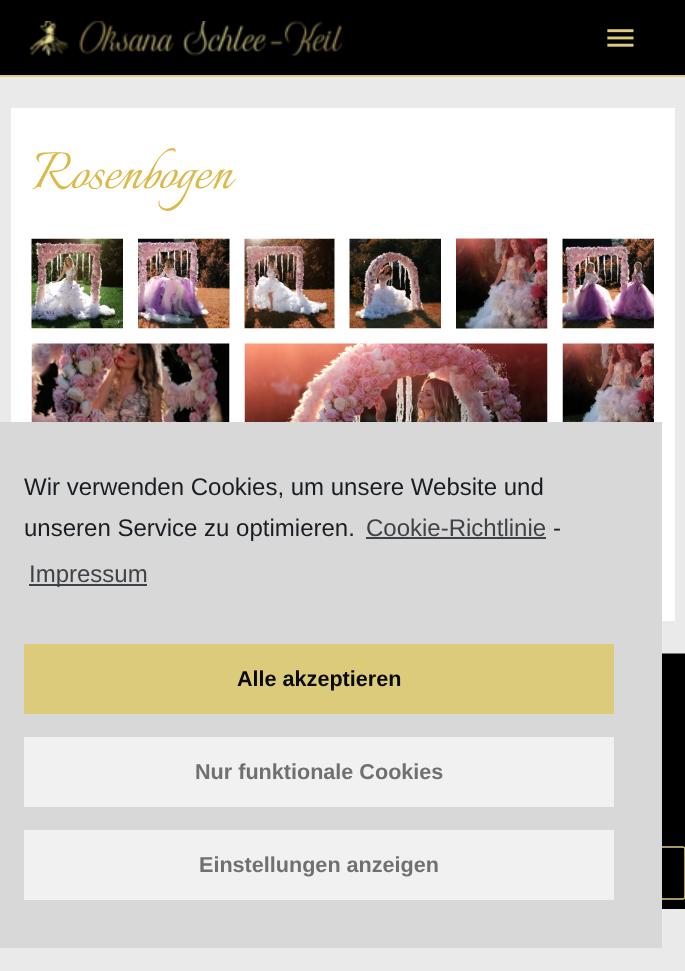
<svg xmlns="http://www.w3.org/2000/svg" width="685" height="971" viewBox="0 0 685 971">
  <rect width="100%" height="100%" fill="#eaeaea"/>
  <rect x="0" y="0" width="685" height="75" fill="#000000"/>
  <rect x="0" y="75" width="685" height="2" fill="#dccb7a"/>
  <image x="30" y="21" width="312" height="35" href="img1.png"/>
  <image x="607" y="29" width="27" height="18" href="img2.png"/>
  <rect x="11" y="108" width="664" height="513" fill="#ffffff"/>
  <text x="32" y="188" font-family="Italianno" font-size="65.5" fill="#dbba4c">Rosenbogen</text>
  <image x="31" y="238" width="92" height="91" href="img3.png"/>
  <image x="138" y="238" width="92" height="91" href="img4.png"/>
  <image x="244" y="238" width="91" height="91" href="img5.png"/>
  <image x="349" y="238" width="92" height="91" href="img6.png"/>
  <image x="456" y="238" width="92" height="91" href="img7.png"/>
  <image x="562" y="238" width="92" height="91" href="img8.png"/>
  <image x="31" y="343" width="199" height="79" href="img9.png"/>
  <image x="244" y="343" width="304" height="79" href="img10.png"/>
  <image x="562" y="343" width="92" height="79" href="img11.png"/>
  <rect x="662" y="653" width="23" height="1" fill="#777777"/>
  <rect x="662" y="654" width="23" height="255" fill="#000000"/>
  <path d="M632 897V849C632 848 633.5 847 634.5 847H682.5C683.5 847 685 848 685 849V897C685 898 683.5 899 682.5 899H634.5C633.5 899 632 898 632 897Z" fill="none" stroke="#dccb7a" stroke-width="1.5"/>
  <rect x="0" y="422" width="662" height="526" fill="#d8d8d8"/>
  <text x="24" y="495" font-family="Liberation Sans" font-size="24" fill="#191e23">Wir verwenden Cookies, um unsere Website und</text>
  <text x="24" y="536" font-family="Liberation Sans" font-size="24" fill="#191e23">unseren Service zu optimieren.</text>
  <text x="366" y="536" font-family="Liberation Sans" font-size="24" fill="#3f4347">Cookie-Richtlinie</text>
  <rect x="366" y="537" width="180" height="2" fill="#3f4347"/>
  <text x="553" y="536" font-family="Liberation Sans" font-size="24" fill="#191e23">-</text>
  <rect x="29" y="584" width="118" height="2" fill="#3f4347"/>
  <text x="29" y="582" font-family="Liberation Sans" font-size="24" fill="#3f4347">Impressum</text>
  <rect x="24" y="644" width="590" height="70" fill="#dccb7a"/>
  <text x="237" y="686" font-family="Liberation Sans" font-size="21.6" font-weight="bold" fill="#0a0a0a">Alle akzeptieren</text>
  <rect x="24" y="737" width="590" height="70" fill="#f1f1f1"/>
  <text x="195" y="779" font-family="Liberation Sans" font-size="21.6" font-weight="bold" fill="#707070">Nur funktionale Cookies</text>
  <rect x="24" y="830" width="590" height="70" fill="#f1f1f1"/>
  <text x="199" y="872" font-family="Liberation Sans" font-size="21.6" font-weight="bold" fill="#707070">Einstellungen anzeigen</text>
</svg>
